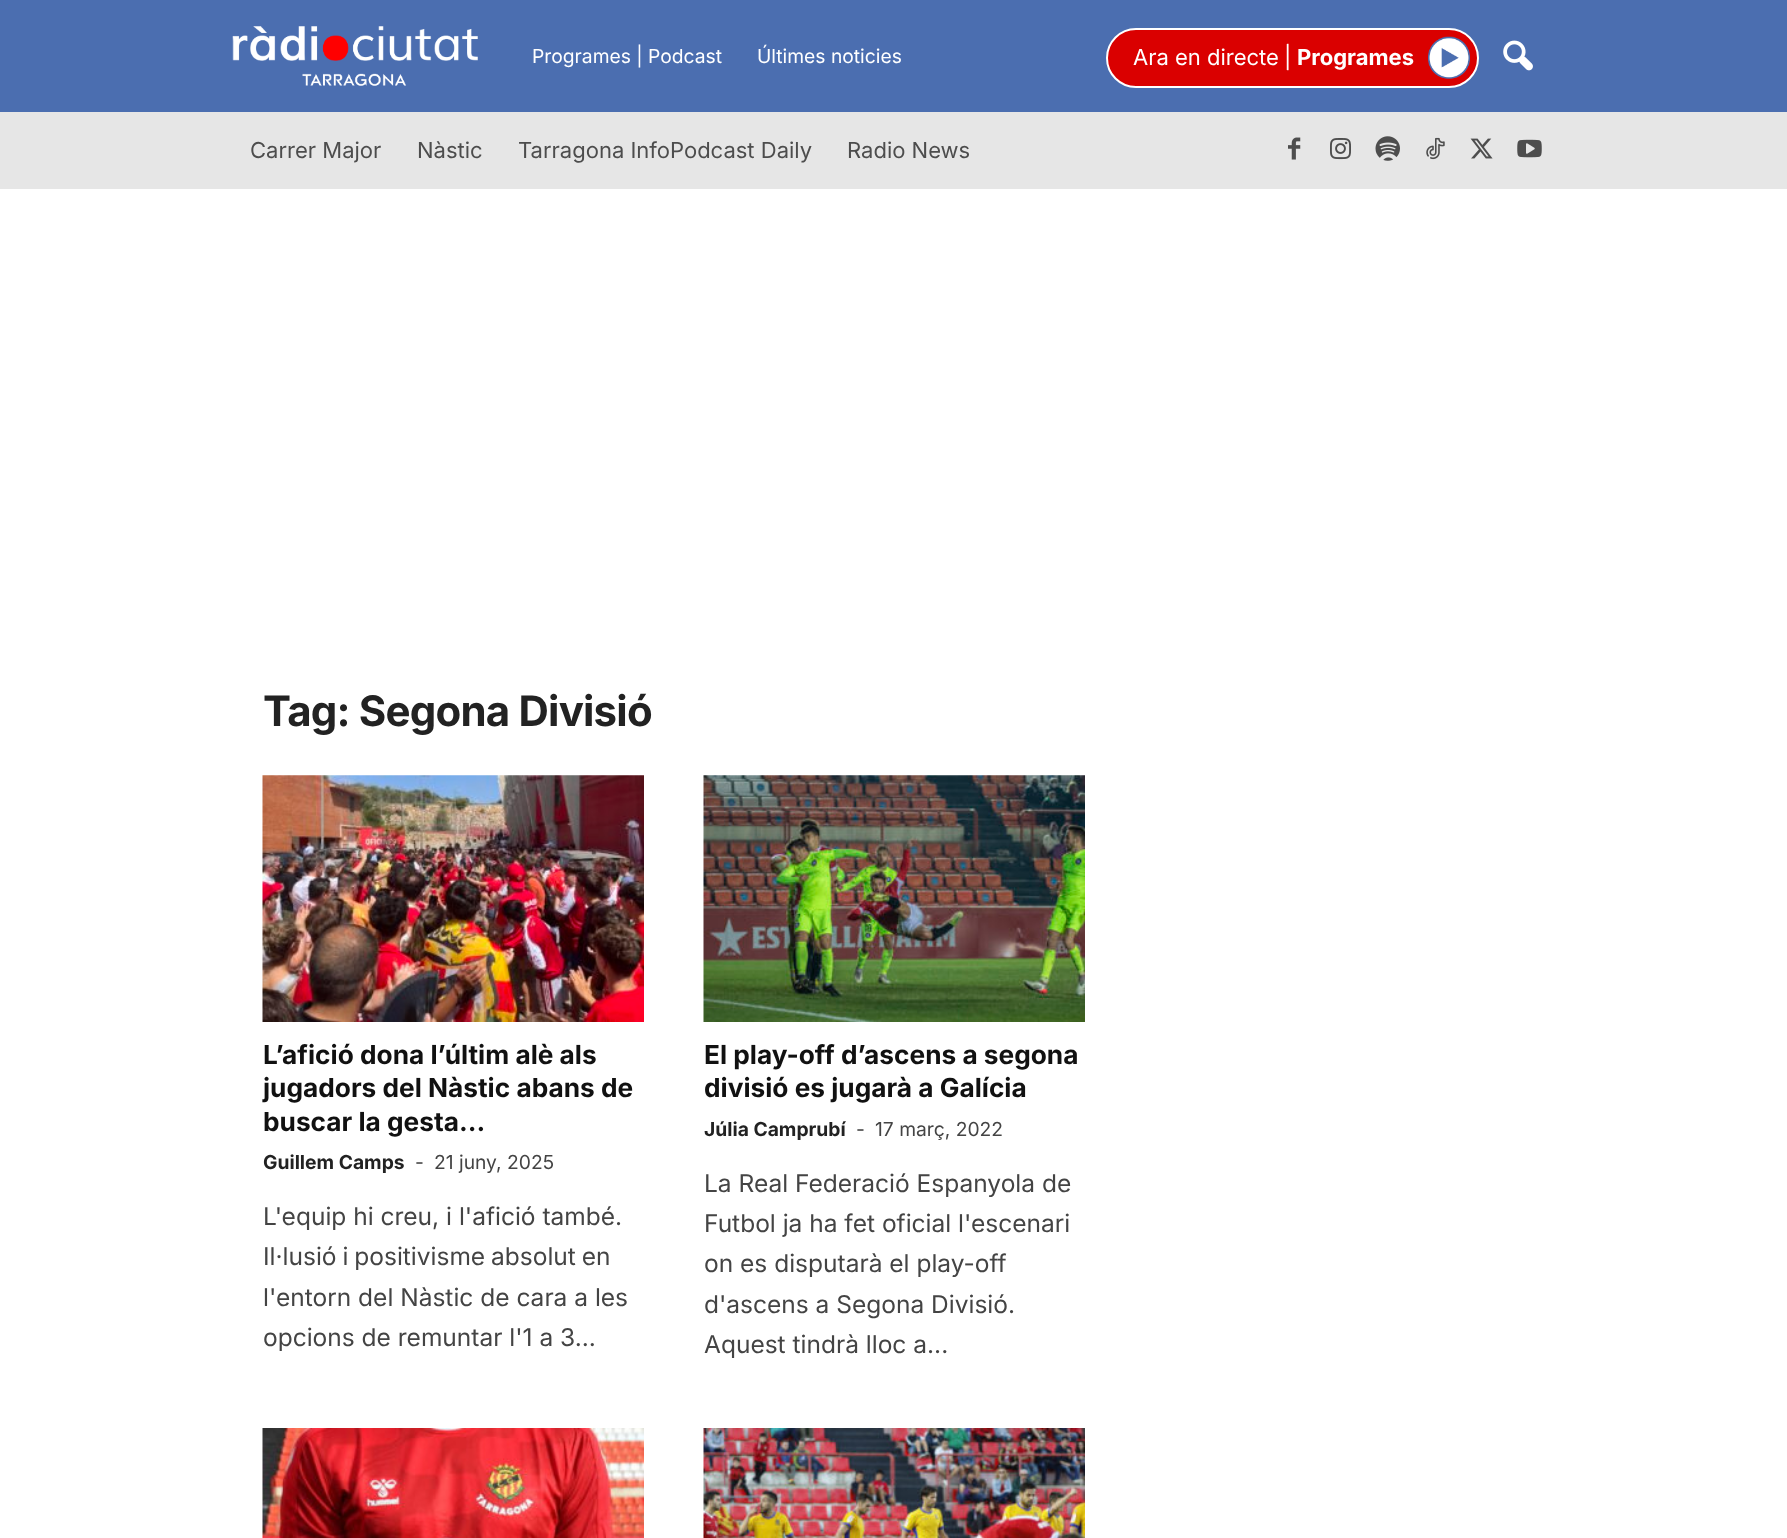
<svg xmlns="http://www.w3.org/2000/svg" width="1787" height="1538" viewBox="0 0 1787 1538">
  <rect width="100%" height="100%" fill="#ffffff"/>
  <rect x="0" y="0" width="1787" height="112" fill="#4b6eb0"/>
  <image x="232" y="26" width="246" height="60" href="img1.png"/>
  <text x="532" y="63" font-family="Inter" font-size="19.25" fill="#ffffff">Programes | Podcast</text>
  <text x="757" y="63" font-family="Inter" font-size="19.25" fill="#ffffff">Últimes noticies</text>
  <rect x="1107" y="29" width="371" height="58" rx="29" fill="#da0000" stroke="#ffffff" stroke-width="2"/>
  <text x="1133" y="65" font-family="Inter" font-size="22" fill="#ffffff">Ara en directe</text>
  <text x="1284" y="65" font-family="Inter" font-size="22" fill="#ffffff">|</text>
  <text x="1297" y="65" font-family="Inter" font-size="22" font-weight="bold" fill="#ffffff">Programes</text>
  <image x="1428" y="36" width="42" height="43" href="img2.png"/>
  <image x="1503" y="40" width="30" height="31" href="img3.png"/>
  <rect x="0" y="112" width="1787" height="77" fill="#e6e6e6"/>
  <text x="250" y="158" font-family="Inter" font-size="22" fill="#4d4d4d">Carrer Major</text>
  <text x="417" y="158" font-family="Inter" font-size="22" fill="#4d4d4d">Nàstic</text>
  <text x="518" y="158" font-family="Inter" font-size="22" fill="#4d4d4d">Tarragona InfoPodcast Daily</text>
  <text x="847" y="158" font-family="Inter" font-size="22" fill="#4d4d4d">Radio News</text>
  <image x="1288" y="137" width="13" height="23" href="img4.png"/>
  <image x="1330" y="138" width="21" height="22" href="img5.png"/>
  <image x="1375" y="136" width="25" height="25" href="img6.png"/>
  <image x="1426" y="137" width="19" height="23" href="img7.png"/>
  <image x="1470" y="138" width="23" height="21" href="img8.png"/>
  <image x="1517" y="139" width="25" height="19" href="img9.png"/>
  <text x="263" y="726" font-family="Inter" font-size="42" font-weight="bold" letter-spacing="-0.8" fill="#222222">Tag: Segona Divisió</text>
  <image x="262" y="775" width="382" height="247" href="img10.png"/>
  <text x="263" y="1064" font-family="Inter" font-size="26.25" font-weight="bold" fill="#111111">L’afició dona l’últim alè als</text>
  <text x="263" y="1097" font-family="Inter" font-size="26.25" font-weight="bold" fill="#111111">jugadors del Nàstic abans de</text>
  <text x="263" y="1131" font-family="Inter" font-size="26.25" font-weight="bold" fill="#111111">buscar la gesta...</text>
  <text x="263" y="1169" font-family="Inter" font-size="19.25" font-weight="bold" fill="#222222">Guillem Camps</text>
  <text x="415" y="1169" font-family="Inter" font-size="19.25" fill="#444444">-</text>
  <text x="434" y="1169" font-family="Inter" font-size="19.25" fill="#444444">21 juny, 2025</text>
  <text x="263" y="1225" font-family="Inter" font-size="24.5" fill="#444444">L'equip hi creu, i l'afició també.</text>
  <text x="263" y="1265" word-spacing="-1" font-family="Inter" font-size="24.5" fill="#444444">Il·lusió i positivisme absolut en</text>
  <text x="263" y="1306" font-family="Inter" font-size="24.5" fill="#444444">l'entorn del Nàstic de cara a les</text>
  <text x="263" y="1346" font-family="Inter" font-size="24.5" fill="#444444">opcions de remuntar l'1 a 3...</text>
  <image x="703" y="775" width="382" height="247" href="img11.png"/>
  <text x="704" y="1064" font-family="Inter" font-size="26.25" font-weight="bold" fill="#111111">El play-off d’ascens a segona</text>
  <text x="704" y="1097" font-family="Inter" font-size="26.25" font-weight="bold" fill="#111111">divisió es jugarà a Galícia</text>
  <text x="704" y="1136" font-family="Inter" font-size="19.25" font-weight="bold" fill="#222222">Júlia Camprubí</text>
  <text x="856" y="1136" font-family="Inter" font-size="19.25" fill="#444444">-</text>
  <text x="875" y="1136" font-family="Inter" font-size="19.25" fill="#444444">17 març, 2022</text>
  <text x="704" y="1192" font-family="Inter" font-size="24.5" fill="#444444">La Real Federació Espanyola de</text>
  <text x="704" y="1232" font-family="Inter" font-size="24.5" fill="#444444">Futbol ja ha fet oficial l'escenari</text>
  <text x="704" y="1272" font-family="Inter" font-size="24.5" fill="#444444">on es disputarà el play-off</text>
  <text x="704" y="1313" font-family="Inter" font-size="24.5" fill="#444444">d'ascens a Segona Divisió.</text>
  <text x="704" y="1353" font-family="Inter" font-size="24.5" fill="#444444">Aquest tindrà lloc a...</text>
  <image x="262" y="1428" width="382" height="110" href="img12.png"/>
  <image x="703" y="1428" width="382" height="110" href="img13.png"/>
</svg>
